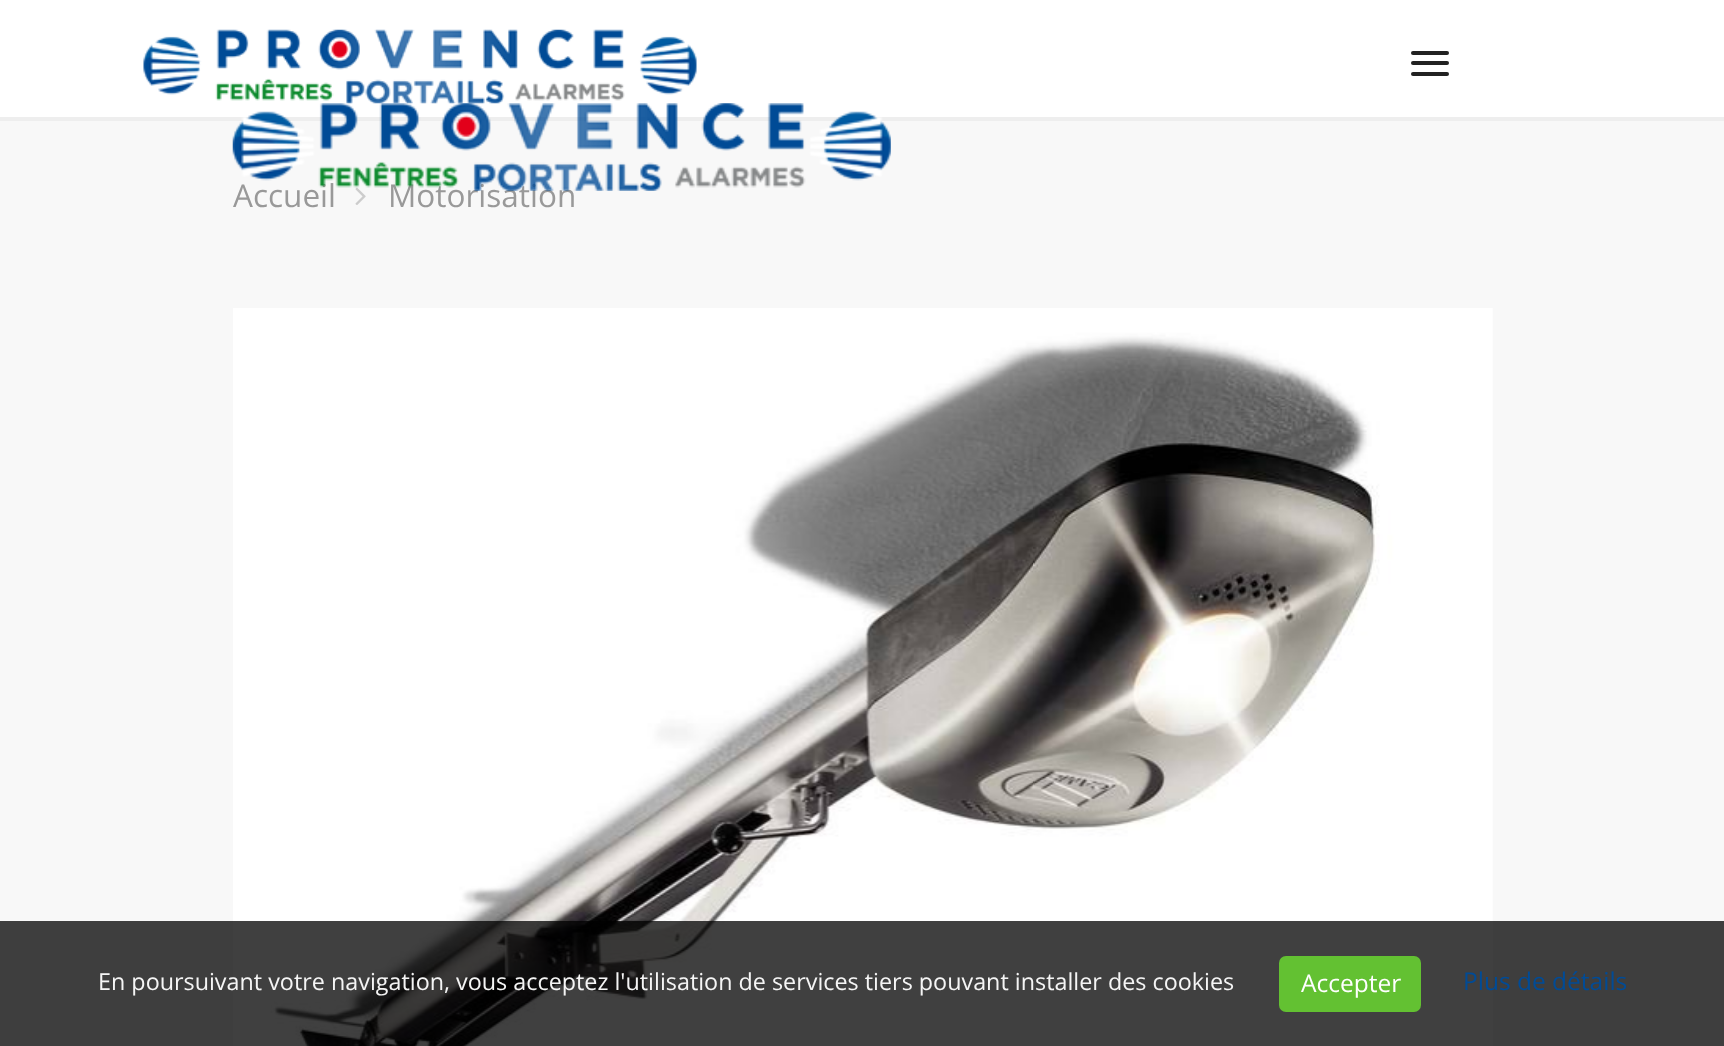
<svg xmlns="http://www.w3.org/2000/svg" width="1724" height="1046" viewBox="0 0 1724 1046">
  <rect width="100%" height="100%" fill="#ffffff"/>
  <rect x="0" y="117" width="1724" height="4" fill="#eeeeee"/>
  <image x="143" y="29" width="554" height="75" href="img1.png"/>
  <rect x="0" y="121" width="1724" height="925" fill="#f8f8f8"/>
  <text x="233" y="207" font-family="Open Sans" font-size="31.5" fill="#999999">Accueil</text>
  <image x="355" y="187" width="11" height="18" href="img3.png"/>
  <text x="388" y="207" font-family="Open Sans" font-size="31.5" fill="#999999">Motorisation</text>
  <image x="232" y="103" width="659" height="88" href="img2.png"/>
  <rect x="1411" y="51" width="38" height="4" rx="2" fill="#222222"/>
  <rect x="1411" y="61" width="38" height="4" rx="2" fill="#222222"/>
  <rect x="1411" y="72" width="38" height="4" rx="2" fill="#222222"/>
  <image x="233" y="308" width="1260" height="738" href="img4.png"/>
  <rect x="0" y="921" width="1724" height="125" fill="#000000" fill-opacity="0.75"/>
  <text x="98" y="990" font-family="Open Sans" font-size="23.35" fill="#f5f5f5">En poursuivant votre navigation, vous acceptez l'utilisation de services tiers pouvant installer des cookies</text>
  <rect x="1279" y="956" width="142" height="56" rx="7" fill="#63c132"/>
  <text x="1301" y="992" font-family="Open Sans" font-size="24.5" fill="#ffffff">Accepter</text>
  <text x="1463" y="990" font-family="Open Sans" font-size="24.5" fill="#004b96">Plus de détails</text>
</svg>
